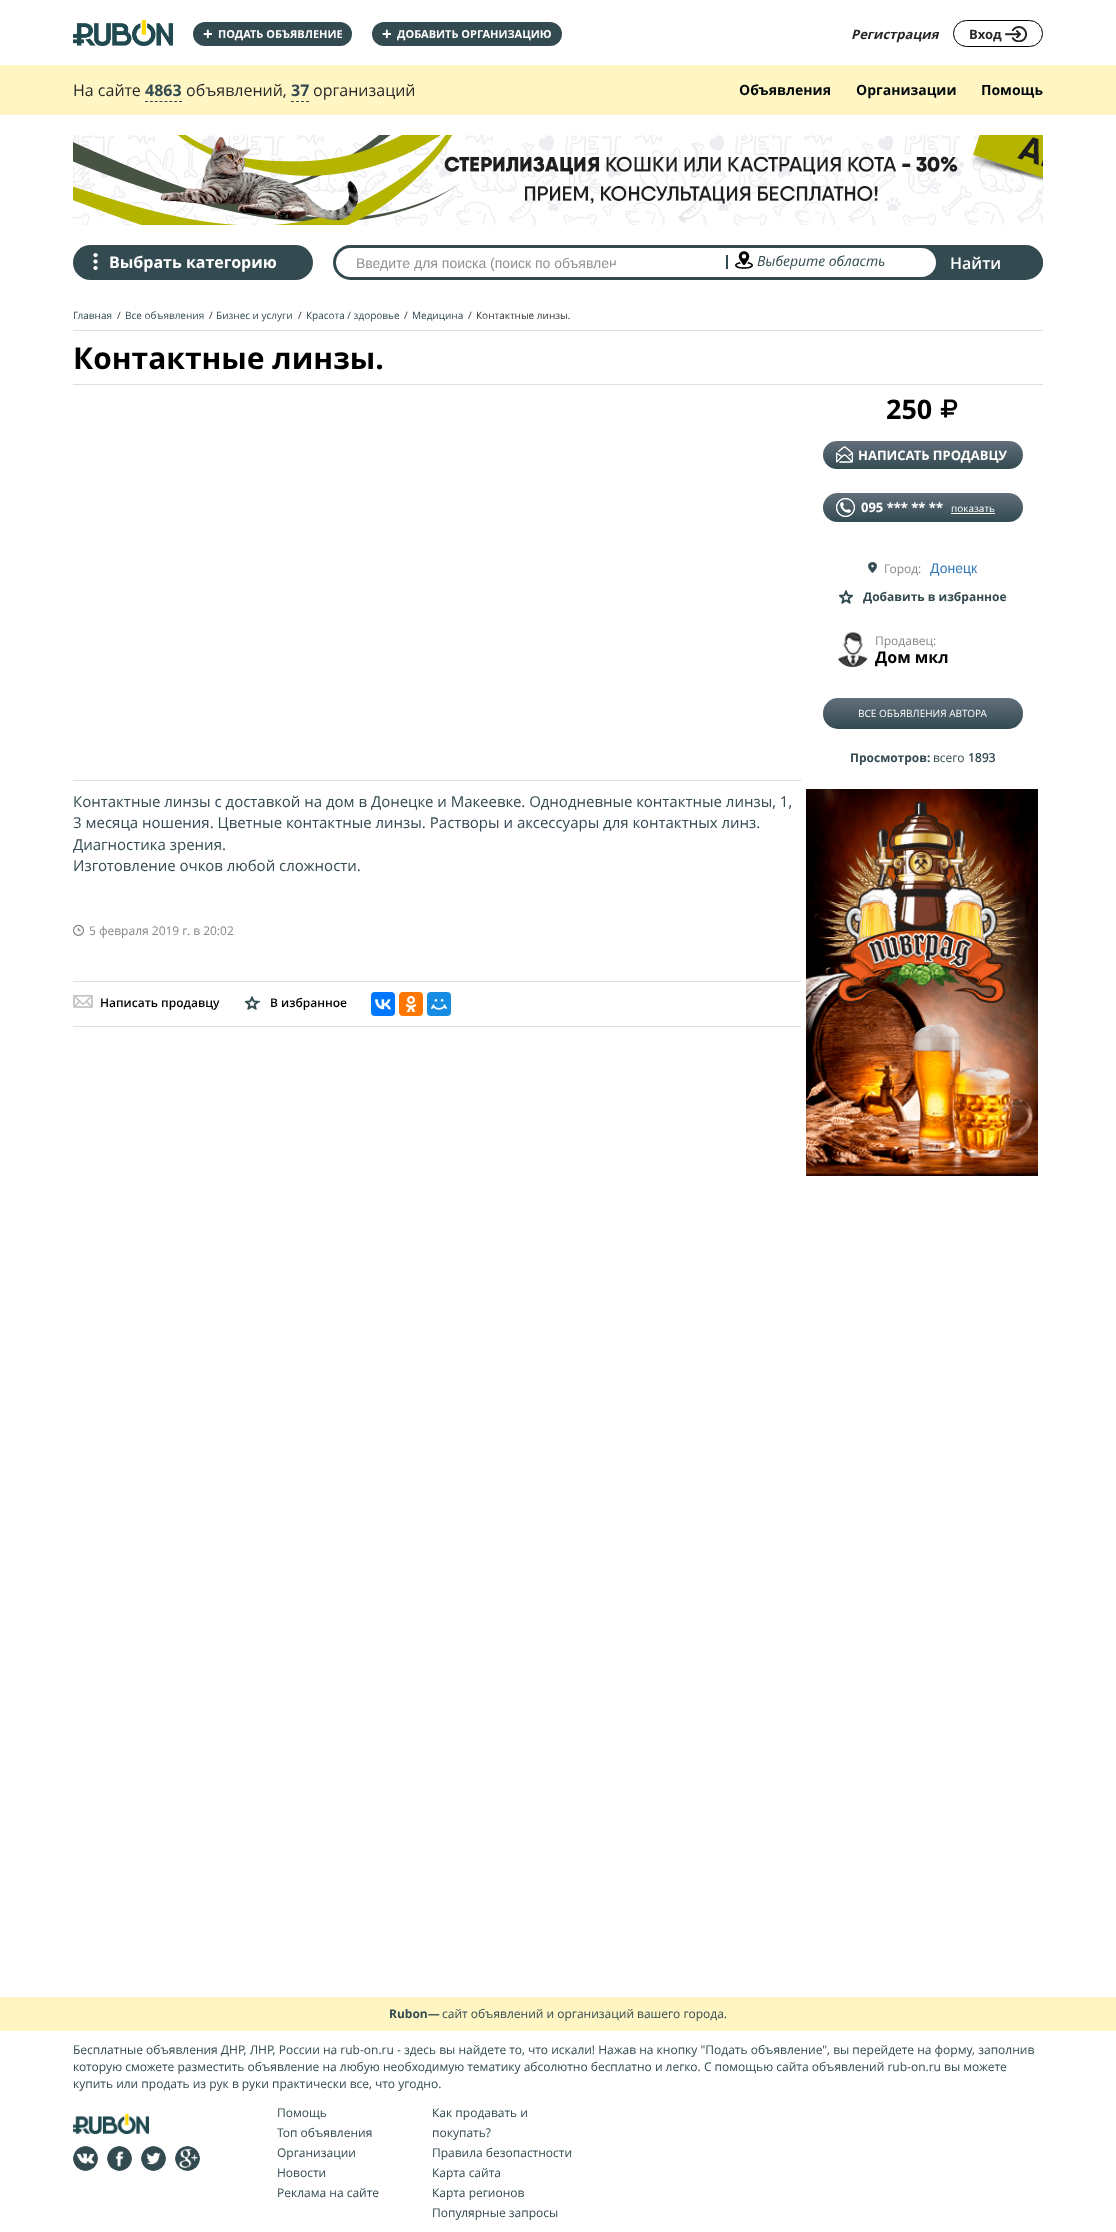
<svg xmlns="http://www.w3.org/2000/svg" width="1116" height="2232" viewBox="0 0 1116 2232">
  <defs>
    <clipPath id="clip1"><path d="M477 248C555 248 618 254.5 618 262.5C618 270.5 555 277 477 277C399 277 336 270.5 336 262.5C336 254.5 399 248 477 248Z"/></clipPath>
    <linearGradient id="g1" gradientUnits="userSpaceOnUse" x1="923" y1="441" x2="923" y2="469"><stop offset="0" stop-color="#626f7b"/><stop offset="1" stop-color="#334a51"/></linearGradient>
    <linearGradient id="g2" gradientUnits="userSpaceOnUse" x1="923" y1="493" x2="923" y2="522"><stop offset="0" stop-color="#626f7b"/><stop offset="1" stop-color="#334a51"/></linearGradient>
    <linearGradient id="g3" gradientUnits="userSpaceOnUse" x1="923" y1="698" x2="923" y2="729"><stop offset="0" stop-color="#626f7b"/><stop offset="1" stop-color="#334a51"/></linearGradient>
  </defs>
  <rect width="100%" height="100%" fill="#ffffff"/>
  <image x="73" y="20" width="100" height="26" href="img1.png"/>
  <rect x="193" y="22" width="159" height="24" rx="12" fill="#334a51"/>
  <text x="203" y="40" font-family="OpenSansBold" font-size="17" font-weight="bold" fill="#ffffff">+</text>
  <text x="218" y="38" font-family="OpenSansBold" font-size="11" font-weight="bold" fill="#ffffff">ПОДАТЬ ОБЪЯВЛЕНИЕ</text>
  <rect x="372" y="22" width="190" height="24" rx="12" fill="#334a51"/>
  <text x="382" y="40" font-family="OpenSansBold" font-size="17" font-weight="bold" fill="#ffffff">+</text>
  <text x="397" y="38" font-family="OpenSansBold" font-size="11" font-weight="bold" fill="#ffffff">ДОБАВИТЬ ОРГАНИЗАЦИЮ</text>
  <text x="851" y="39" font-family="OpenSansBold" font-size="13" font-weight="bold" font-style="italic" fill="#282828">Регистрация</text>
  <rect x="953.5" y="20.5" width="89" height="26" rx="13" fill="none" stroke="#000002"/>
  <text x="969" y="39" font-family="OpenSansBold" font-size="13" font-weight="bold" fill="#282828">Вход</text>
  <image x="1005" y="26" width="22" height="16" href="img2.png"/>
  <rect x="0" y="65" width="1116" height="50" fill="#fff6c4"/>
  <text x="73" y="96" font-family="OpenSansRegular" font-size="16" fill="#282828">На сайте</text>
  <text x="145" y="96" font-family="OpenSansBold" font-size="16" font-weight="bold" fill="#334a51">4863</text>
  <path d="M145 101.5H182" fill="none" stroke="#334a51" stroke-dasharray="3 1.86"/>
  <text x="186" y="96" font-family="OpenSansRegular" font-size="16" fill="#282828">объявлений,</text>
  <text x="291" y="96" font-family="OpenSansBold" font-size="16" font-weight="bold" fill="#334a51">37</text>
  <path d="M291 101.5H309" fill="none" stroke="#334a51" stroke-dasharray="3 2"/>
  <text x="313" y="96" font-family="OpenSansRegular" font-size="16" fill="#282828">организаций</text>
  <text x="739" y="95" font-family="OpenSansBold" font-size="14" font-weight="bold" fill="#01080a">Объявления</text>
  <text x="856" y="95" font-family="OpenSansBold" font-size="14" font-weight="bold" fill="#01080a">Организации</text>
  <text x="981" y="95" font-family="OpenSansBold" font-size="14" font-weight="bold" fill="#01080a">Помощь</text>
  <image x="73" y="135" width="970" height="90" href="img3.png"/>
  <rect x="73" y="245" width="240" height="35" rx="17.5" fill="#334a51"/>
  <image x="93" y="253" width="5" height="17" href="img4.png"/>
  <text x="109" y="268" font-family="OpenSansBold" font-size="16" font-weight="bold" fill="#ffffff">Выбрать категорию</text>
  <rect x="334.5" y="246.5" width="707" height="32" rx="16" fill="none" stroke="#334a51" stroke-width="3"/>
  <ellipse cx="477" cy="262.5" rx="141" ry="14.5" fill="#ffffff"/>
  <g clip-path="url(#clip1)">
    <text x="356" y="268" font-family="Liberation Sans" font-size="14" fill="#919191">Введите для поиска (поиск по объявлен</text>
  </g>
  <rect x="726" y="255" width="2" height="14" fill="#334a51"/>
  <image x="735" y="251" width="18" height="18" href="img5.png"/>
  <text x="757" y="266" font-family="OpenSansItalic" font-size="14" font-style="italic" fill="#334a51">Выберите область</text>
  <rect x="908" y="248" width="135" height="30" rx="15" fill="#334a51"/>
  <path d="M907 248H921.5C929.5 248 936 254.5 936 262.5C936 270.5 929.5 277 921.5 277H907Z" fill="#ffffff"/>
  <text x="950" y="269" font-family="Open Sans" font-size="16" font-weight="600" fill="#ffffff">Найти</text>
  <text x="73" y="319" font-family="OpenSansRegular" font-size="10" fill="#334a51">Главная</text>
  <text x="117" y="319" font-family="OpenSansRegular" font-size="10" fill="#333333">/</text>
  <text x="125" y="319" font-family="OpenSansRegular" font-size="10" fill="#334a51">Все объявления</text>
  <text x="209" y="319" font-family="OpenSansRegular" font-size="10" fill="#333333">/</text>
  <text x="216" y="319" font-family="OpenSansRegular" font-size="10" fill="#334a51">Бизнес и услуги</text>
  <text x="298" y="319" font-family="OpenSansRegular" font-size="10" fill="#333333">/</text>
  <text x="306" y="319" font-family="OpenSansRegular" font-size="10" fill="#334a51">Красота / здоровье</text>
  <text x="404" y="319" font-family="OpenSansRegular" font-size="10" fill="#333333">/</text>
  <text x="412" y="319" font-family="OpenSansRegular" font-size="10" fill="#334a51">Медицина</text>
  <text x="468" y="319" font-family="OpenSansRegular" font-size="10" fill="#333333">/</text>
  <text x="476" y="319" font-family="OpenSansRegular" font-size="10" fill="#333333">Контактные линзы.</text>
  <rect x="73" y="330" width="970" height="1" fill="#dedede"/>
  <rect x="73" y="384" width="970" height="1" fill="#dedede"/>
  <text x="73" y="369" font-family="OpenSansBold" font-size="30" font-weight="bold" fill="#000000">Контактные линзы.</text>
  <text x="886" y="419" font-family="OpenSansBold" font-size="27" font-weight="bold" fill="#000000">250</text>
  <image x="940" y="399" width="18" height="19" href="img6.png"/>
  <rect x="823" y="441" width="200" height="28" rx="14" fill="url(#g1)"/>
  <image x="836" y="446" width="17" height="17" href="img7.png"/>
  <text x="858" y="460" font-family="OpenSansBold" font-size="13" font-weight="bold" fill="#ffffff">НАПИСАТЬ ПРОДАВЦУ</text>
  <rect x="823" y="493" width="200" height="29" rx="14.5" fill="url(#g2)"/>
  <image x="836" y="498" width="19" height="19" href="img8.png"/>
  <text x="861" y="512" font-family="OpenSansBold" font-size="13" font-weight="bold" fill="#ffffff">095 *** ** **</text>
  <text x="951" y="512" font-family="OpenSansRegular" font-size="10" fill="#ffffff">показать</text>
  <rect x="951" y="513" width="44" height="1" fill="#ffffff"/>
  <image x="868" y="562" width="9" height="11" href="img9.png"/>
  <text x="884" y="573" font-family="OpenSansRegular" font-size="12" fill="#878787">Город:</text>
  <text x="930" y="573" font-family="Liberation Sans" font-size="14" fill="#337ab7">Донецк</text>
  <image x="839" y="590" width="14" height="14" href="img10.png"/>
  <text x="863" y="601" font-family="OpenSansBold" font-size="12" font-weight="bold" fill="#334a51">Добавить в избранное</text>
  <image x="837" y="632" width="31" height="35" href="img11.png"/>
  <text x="875" y="645" font-family="OpenSansRegular" font-size="12" fill="#878787">Продавец:</text>
  <text x="875" y="663" font-family="OpenSansBold" font-size="16" font-weight="bold" fill="#000000">Дом мкл</text>
  <rect x="823" y="698" width="200" height="31" rx="15" fill="url(#g3)"/>
  <text x="858" y="717" font-family="OpenSansRegular" font-size="10" fill="#ffffff">ВСЕ ОБЪЯВЛЕНИЯ АВТОРА</text>
  <text x="850" y="762" font-family="OpenSansBold" font-size="12" font-weight="bold" fill="#334a51">Просмотров:</text>
  <text x="933" y="762" font-family="OpenSansRegular" font-size="12" fill="#334a51">всего</text>
  <text x="968" y="762" font-family="OpenSansRegular" font-size="12" font-weight="bold" fill="#334a51">1893</text>
  <image x="806" y="789" width="232" height="387" href="img12.png"/>
  <rect x="73" y="780" width="728" height="1" fill="#dedede"/>
  <text x="73" y="807" font-family="OpenSansRegular" font-size="15" fill="#334a51">Контактные линзы с доставкой на дом в Донецке и Макеевке. Однодневные контактные линзы, 1,</text>
  <text x="73" y="828" font-family="OpenSansRegular" font-size="15" fill="#334a51">3 месяца ношения. Цветные контактные линзы. Растворы и аксессуары для контактных линз.</text>
  <text x="73" y="850" font-family="OpenSansRegular" font-size="15" fill="#334a51">Диагностика зрения.</text>
  <text x="73" y="871" font-family="OpenSansRegular" font-size="15" fill="#334a51">Изготовление очков любой сложности.</text>
  <image x="73" y="925" width="11" height="11" href="img13.png"/>
  <text x="89" y="935" font-family="OpenSansRegular" font-size="12" fill="#878787">5 февраля 2019 г. в 20:02</text>
  <rect x="73" y="981" width="728" height="1" fill="#dedede"/>
  <rect x="73" y="1026" width="728" height="1" fill="#dedede"/>
  <image x="73" y="995" width="20" height="13" href="img14.png"/>
  <text x="100" y="1007" font-family="Open Sans" font-size="12" font-weight="600" fill="#000000">Написать продавцу</text>
  <image x="245" y="996" width="15" height="14" href="img15.png"/>
  <text x="270" y="1007" font-family="Open Sans" font-size="12" font-weight="600" fill="#000000">В избранное</text>
  <rect x="371" y="992" width="24" height="24" rx="4" fill="#0077ff"/>
  <image x="375" y="999" width="16" height="11" href="img16.png"/>
  <rect x="399" y="992" width="24" height="24" rx="4" fill="#ff7700"/>
  <image x="405" y="996" width="12" height="16" href="img17.png"/>
  <rect x="427" y="992" width="24" height="24" rx="4" fill="#168de2"/>
  <image x="431" y="999" width="16" height="11" href="img18.png"/>
  <rect x="0" y="1997" width="1116" height="34" fill="#fff6c4"/>
  <text x="389" y="2018" font-family="OpenSansBold" font-size="12" font-weight="bold" fill="#334a51">Rubon—</text>
  <text x="442" y="2018" font-family="OpenSansRegular" font-size="12" fill="#334a51">сайт объявлений и организаций вашего города.</text>
  <text x="73" y="2054" font-family="OpenSansRegular" font-size="12" fill="#334a51">Бесплатные объявления ДНР, ЛНР, России на rub-on.ru - здесь вы найдете то, что искали! Нажав на кнопку "Подать объявление", вы перейдете на форму, заполнив</text>
  <text x="73" y="2071" font-family="OpenSansRegular" font-size="12" fill="#334a51">которую сможете разместить объявление на любую необходимую тематику абсолютно бесплатно и легко. С помощью сайта объявлений rub-on.ru вы можете</text>
  <text x="73" y="2088" font-family="OpenSansRegular" font-size="12" fill="#334a51">купить или продать из рук в руки практически все, что угодно.</text>
  <image x="73" y="2114" width="76" height="20" href="img19.png"/>
  <image x="73" y="2146" width="25" height="25" href="img20.png"/>
  <image x="107" y="2146" width="25" height="25" href="img21.png"/>
  <image x="141" y="2146" width="25" height="25" href="img22.png"/>
  <image x="175" y="2146" width="25" height="25" href="img23.png"/>
  <text x="277" y="2117" font-family="OpenSansRegular" font-size="12" fill="#334a51">Помощь</text>
  <text x="277" y="2137" font-family="OpenSansRegular" font-size="12" fill="#334a51">Топ объявления</text>
  <text x="277" y="2157" font-family="OpenSansRegular" font-size="12" fill="#334a51">Организации</text>
  <text x="277" y="2177" font-family="OpenSansRegular" font-size="12" fill="#334a51">Новости</text>
  <text x="277" y="2197" font-family="OpenSansRegular" font-size="12" fill="#334a51">Реклама на сайте</text>
  <text x="432" y="2117" font-family="OpenSansRegular" font-size="12" fill="#334a51">Как продавать и</text>
  <text x="432" y="2137" font-family="OpenSansRegular" font-size="12" fill="#334a51">покупать?</text>
  <text x="432" y="2157" font-family="OpenSansRegular" font-size="12" fill="#334a51">Правила безопастности</text>
  <text x="432" y="2177" font-family="OpenSansRegular" font-size="12" fill="#334a51">Карта сайта</text>
  <text x="432" y="2197" font-family="OpenSansRegular" font-size="12" fill="#334a51">Карта регионов</text>
  <text x="432" y="2217" font-family="OpenSansRegular" font-size="12" fill="#334a51">Популярные запросы</text>
</svg>
